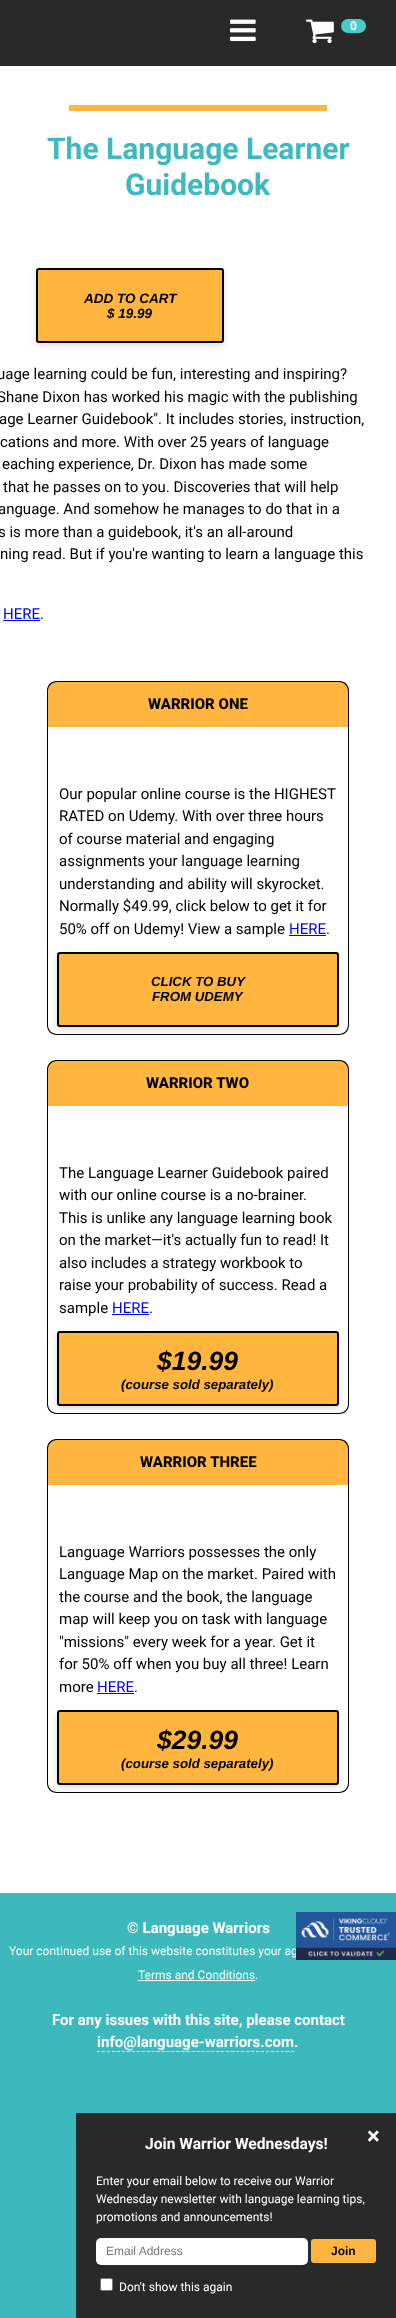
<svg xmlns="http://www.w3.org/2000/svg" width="396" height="2318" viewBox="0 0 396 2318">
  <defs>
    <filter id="blur1" x="-50%" y="-200%" width="200%" height="500%"><feGaussianBlur stdDeviation="5"/></filter>
    <filter id="blur2" x="-50%" y="-200%" width="200%" height="500%"><feGaussianBlur stdDeviation="2.5"/></filter>
  </defs>
  <rect width="100%" height="100%" fill="#3db9be"/>
  <rect x="0" y="0" width="396" height="66" fill="#292929"/>
  <image x="230" y="19" width="26" height="22" href="img1.png"/>
  <image x="306" y="19" width="28" height="25" href="img2.png"/>
  <rect x="341" y="19" width="25" height="14" rx="7" fill="#46cccc"/>
  <text x="350" y="30" font-family="Roboto" font-size="12" font-weight="bold" fill="#ffffff">0</text>
  <rect x="0" y="66" width="396" height="1827" fill="#ffffff"/>
  <rect x="69" y="105" width="258" height="6" fill="#ffb53e"/>
  <text x="47" y="159" font-family="Roboto" font-size="30" font-weight="bold" fill="#3db9bf">The Language Learner</text>
  <text x="125" y="195" font-family="Roboto" font-size="30" font-weight="bold" fill="#3db9bf">Guidebook</text>
  <rect x="36" y="271" width="188" height="75" rx="3" fill="#000000" fill-opacity="0.05" filter="url(#blur1)"/>
  <rect x="36" y="270" width="188" height="75" rx="3" fill="#000000" fill-opacity="0.1" filter="url(#blur2)"/>
  <rect x="37" y="269" width="186" height="73" rx="2" fill="#ffb53e" stroke="#000000" stroke-width="2"/>
  <text x="84" y="303" font-family="Liberation Sans" font-size="13.5" font-weight="bold" font-style="italic" fill="#000000">ADD TO CART</text>
  <text x="107" y="318" font-family="Liberation Sans" font-size="13.5" font-weight="bold" font-style="italic" fill="#000000">$ 19.99</text>
  <text x="-3" y="379" font-family="Roboto" font-size="15" fill="#000000">uage learning could be fun, interesting and inspiring?</text>
  <text x="-3" y="402" font-family="Roboto" font-size="15" fill="#000000">Shane Dixon has worked his magic with the publishing</text>
  <text x="-1" y="424" font-family="Roboto" font-size="15" fill="#000000">age Learner Guidebook". It includes stories, instruction,</text>
  <text x="0" y="447" font-family="Roboto" font-size="15" fill="#000000">cations and more. With over 25 years of language</text>
  <text x="2" y="469" font-family="Roboto" font-size="15" fill="#000000">eaching experience, Dr. Dixon has made some</text>
  <text x="3" y="492" font-family="Roboto" font-size="15" fill="#000000">that he passes on to you. Discoveries that will help</text>
  <text x="-2" y="514" font-family="Roboto" font-size="15" fill="#000000">anguage. And somehow he manages to do that in a</text>
  <text x="-2" y="537" font-family="Roboto" font-size="15" fill="#000000">s is more than a guidebook, it's an all-around</text>
  <text x="0" y="559" font-family="Roboto" font-size="15" fill="#000000">ning read. But if you're wanting to learn a language this</text>
  <text x="3" y="619" font-family="Roboto" font-size="15" fill="#0000ee">HERE</text>
  <rect x="3" y="620" width="37" height="1" fill="#0000ee"/>
  <text x="40" y="619" font-family="Roboto" font-size="15" fill="#000000">.</text>
  <path d="M57 681H339C344.5 681 349 685.5 349 691V727H47V691C47 685.5 51.5 681 57 681Z" fill="#ffb53e"/>
  <path d="M57 681H339C345 681 349 685 349 691V727H47V691C47 685 51 681 57 681ZM57 682H339C344 682 348 686 348 691V727H48V691C48 686 52 682 57 682Z" fill="#000000" fill-rule="evenodd"/>
  <text x="148" y="709" font-family="Roboto" font-size="15" font-weight="800" fill="#000000">WARRIOR ONE</text>
  <path d="M47 952H349V1025C349 1031 345 1035 339 1035H57C51 1035 47 1031 47 1025ZM48 952H348V1025C348 1030 344 1034 339 1034H57C52 1034 48 1030 48 1025Z" fill="#000000" fill-rule="evenodd"/>
  <rect x="57" y="955" width="282" height="75" rx="3" fill="#000000" fill-opacity="0.05" filter="url(#blur1)"/>
  <rect x="348" y="727" width="1" height="225" fill="#000000"/>
  <rect x="47" y="727" width="1" height="225" fill="#000000"/>
  <rect x="57" y="954" width="282" height="75" rx="3" fill="#000000" fill-opacity="0.1" filter="url(#blur2)"/>
  <rect x="57" y="949" width="282" height="3" fill="#ffffff"/>
  <text x="59" y="799" font-family="Roboto" font-size="15" fill="#000000">Our popular online course is the HIGHEST</text>
  <text x="59" y="821" font-family="Roboto" font-size="15" fill="#000000">RATED on Udemy. With over three hours</text>
  <text x="59" y="844" font-family="Roboto" font-size="15" fill="#000000">of course material and engaging</text>
  <text x="59" y="866" font-family="Roboto" font-size="15" fill="#000000">assignments your language learning</text>
  <text x="59" y="889" font-family="Roboto" font-size="15" fill="#000000">understanding and ability will skyrocket.</text>
  <text x="59" y="911" font-family="Roboto" font-size="15" fill="#000000">Normally $49.99, click below to get it for</text>
  <text x="59" y="934" font-family="Roboto" font-size="15" fill="#000000">50% off on Udemy! View a sample</text>
  <text x="289" y="934" font-family="Roboto" font-size="15" fill="#0000ee">HERE</text>
  <rect x="289" y="935" width="37" height="1" fill="#0000ee"/>
  <text x="326" y="934" font-family="Roboto" font-size="15" fill="#000000">.</text>
  <rect x="58" y="953" width="280" height="73" rx="2" fill="#ffb53e" stroke="#000000" stroke-width="2"/>
  <text x="151" y="986" font-family="Liberation Sans" font-size="13.25" font-weight="bold" font-style="italic" fill="#000000">CLICK TO BUY</text>
  <text x="152" y="1001" font-family="Liberation Sans" font-size="13.25" font-weight="bold" font-style="italic" fill="#000000">FROM UDEMY</text>
  <path d="M57 1060H339C344.5 1060 349 1064.5 349 1070V1106H47V1070C47 1064.5 51.5 1060 57 1060Z" fill="#ffb53e"/>
  <path d="M57 1060H339C345 1060 349 1064 349 1070V1106H47V1070C47 1064 51 1060 57 1060ZM57 1061H339C344 1061 348 1065 348 1070V1106H48V1070C48 1065 52 1061 57 1061Z" fill="#000000" fill-rule="evenodd"/>
  <text x="146" y="1088" font-family="Roboto" font-size="15" font-weight="800" fill="#000000">WARRIOR TWO</text>
  <path d="M47 1331H349V1404C349 1410 345 1414 339 1414H57C51 1414 47 1410 47 1404ZM48 1331H348V1404C348 1409 344 1413 339 1413H57C52 1413 48 1409 48 1404Z" fill="#000000" fill-rule="evenodd"/>
  <rect x="57" y="1334" width="282" height="75" rx="3" fill="#000000" fill-opacity="0.05" filter="url(#blur1)"/>
  <rect x="348" y="1106" width="1" height="225" fill="#000000"/>
  <rect x="47" y="1106" width="1" height="225" fill="#000000"/>
  <rect x="57" y="1333" width="282" height="75" rx="3" fill="#000000" fill-opacity="0.1" filter="url(#blur2)"/>
  <rect x="57" y="1328" width="282" height="3" fill="#ffffff"/>
  <text x="59" y="1178" font-family="Roboto" font-size="15" fill="#000000">The Language Learner Guidebook paired</text>
  <text x="59" y="1200" font-family="Roboto" font-size="15" fill="#000000">with our online course is a no-brainer.</text>
  <text x="59" y="1223" font-family="Roboto" font-size="15" fill="#000000">This is unlike any language learning book</text>
  <text x="59" y="1245" font-family="Roboto" font-size="15" fill="#000000">on the market—it's actually fun to read! It</text>
  <text x="59" y="1268" font-family="Roboto" font-size="15" fill="#000000">also includes a strategy workbook to</text>
  <text x="59" y="1290" font-family="Roboto" font-size="15" fill="#000000">raise your probability of success. Read a</text>
  <text x="59" y="1313" font-family="Roboto" font-size="15" fill="#000000">sample</text>
  <text x="112" y="1313" font-family="Roboto" font-size="15" fill="#0000ee">HERE</text>
  <rect x="112" y="1314" width="37" height="1" fill="#0000ee"/>
  <text x="149" y="1313" font-family="Roboto" font-size="15" fill="#000000">.</text>
  <rect x="58" y="1332" width="280" height="73" rx="2" fill="#ffb53e" stroke="#000000" stroke-width="2"/>
  <text x="157" y="1370" font-family="Liberation Sans" font-size="26.5" font-weight="bold" font-style="italic" fill="#000000">$19.99</text>
  <text x="121" y="1389" font-family="Liberation Sans" font-size="13.25" font-weight="bold" font-style="italic" fill="#000000">(course sold separately)</text>
  <path d="M57 1439H339C344.5 1439 349 1443.5 349 1449V1485H47V1449C47 1443.5 51.5 1439 57 1439Z" fill="#ffb53e"/>
  <path d="M57 1439H339C345 1439 349 1443 349 1449V1485H47V1449C47 1443 51 1439 57 1439ZM57 1440H339C344 1440 348 1444 348 1449V1485H48V1449C48 1444 52 1440 57 1440Z" fill="#000000" fill-rule="evenodd"/>
  <text x="140" y="1467" font-family="Roboto" font-size="15" font-weight="800" fill="#000000">WARRIOR THREE</text>
  <path d="M47 1710H349V1783C349 1789 345 1793 339 1793H57C51 1793 47 1789 47 1783ZM48 1710H348V1783C348 1788 344 1792 339 1792H57C52 1792 48 1788 48 1783Z" fill="#000000" fill-rule="evenodd"/>
  <rect x="57" y="1713" width="282" height="75" rx="3" fill="#000000" fill-opacity="0.05" filter="url(#blur1)"/>
  <rect x="348" y="1485" width="1" height="225" fill="#000000"/>
  <rect x="47" y="1485" width="1" height="225" fill="#000000"/>
  <rect x="57" y="1712" width="282" height="75" rx="3" fill="#000000" fill-opacity="0.1" filter="url(#blur2)"/>
  <rect x="57" y="1707" width="282" height="3" fill="#ffffff"/>
  <text x="59" y="1557" font-family="Roboto" font-size="15" fill="#000000">Language Warriors possesses the only</text>
  <text x="59" y="1579" font-family="Roboto" font-size="15" fill="#000000">Language Map on the market. Paired with</text>
  <text x="59" y="1602" font-family="Roboto" font-size="15" fill="#000000">the course and the book, the language</text>
  <text x="59" y="1624" font-family="Roboto" font-size="15" fill="#000000">map will keep you on task with language</text>
  <text x="59" y="1647" font-family="Roboto" font-size="15" fill="#000000">"missions" every week for a year. Get it</text>
  <text x="59" y="1669" font-family="Roboto" font-size="15" fill="#000000">for 50% off when you buy all three! Learn</text>
  <text x="59" y="1692" font-family="Roboto" font-size="15" fill="#000000">more</text>
  <text x="97" y="1692" font-family="Roboto" font-size="15" fill="#0000ee">HERE</text>
  <rect x="97" y="1693" width="37" height="1" fill="#0000ee"/>
  <text x="134" y="1692" font-family="Roboto" font-size="15" fill="#000000">.</text>
  <rect x="58" y="1711" width="280" height="73" rx="2" fill="#ffb53e" stroke="#000000" stroke-width="2"/>
  <text x="157" y="1749" font-family="Liberation Sans" font-size="26.5" font-weight="bold" font-style="italic" fill="#000000">$29.99</text>
  <text x="121" y="1768" font-family="Liberation Sans" font-size="13.25" font-weight="bold" font-style="italic" fill="#000000">(course sold separately)</text>
  <text x="127" y="1933" font-family="Roboto" font-size="15" font-weight="bold" fill="#ffffff">© Language Warriors</text>
  <text x="9" y="1955" font-family="Roboto" font-size="12" fill="#ffffff">Your continued use of this website constitutes your ag</text>
  <image x="296" y="1912" width="100" height="48" href="img3.png"/>
  <text x="138" y="1979" font-family="Roboto" font-size="12" fill="#ffffff">Terms and Conditions.</text>
  <rect x="138" y="1980" width="117" height="1" fill="#ffffff"/>
  <text x="52" y="2025" font-family="Roboto" font-size="15" font-weight="bold" fill="#ffffff">For any issues with this site, please contact</text>
  <text x="97" y="2047" font-family="Roboto" font-size="15" font-weight="bold" fill="#ffffff">info@language-warriors.com.</text>
  <path d="M97 2051.5H294" fill="none" stroke="#ffffff" stroke-dasharray="3 1.97"/>
  <rect x="76" y="2113" width="320" height="205" fill="#292929"/>
  <text x="145" y="2149" font-family="Roboto" font-size="15.6" font-weight="bold" fill="#ffffff">Join Warrior Wednesdays!</text>
  <text x="367" y="2144" font-family="Roboto" font-size="24" font-weight="bold" fill="#ffffff">×</text>
  <text x="96" y="2185" font-family="Roboto" font-size="12" fill="#ffffff">Enter your email below to receive our Warrior</text>
  <text x="96" y="2203" font-family="Roboto" font-size="12" fill="#ffffff">Wednesday newsletter with language learning tips,</text>
  <text x="96" y="2221" font-family="Roboto" font-size="12" fill="#ffffff">promotions and announcements!</text>
  <rect x="96" y="2238" width="212" height="27" rx="5" fill="#ffffff"/>
  <text x="106" y="2255" font-family="Liberation Sans" font-size="12" fill="#757575">Email Address</text>
  <rect x="311" y="2239" width="65" height="24" rx="3" fill="#ffb53e"/>
  <text x="331" y="2255" font-family="Liberation Sans" font-size="12" font-weight="bold" fill="#000000">Join</text>
  <rect x="100.5" y="2278.5" width="12" height="12" rx="1.5" fill="#ffffff" stroke="#767676"/>
  <text x="119" y="2291" font-family="Roboto" font-size="12" fill="#ffffff">Don't show this again</text>
</svg>
